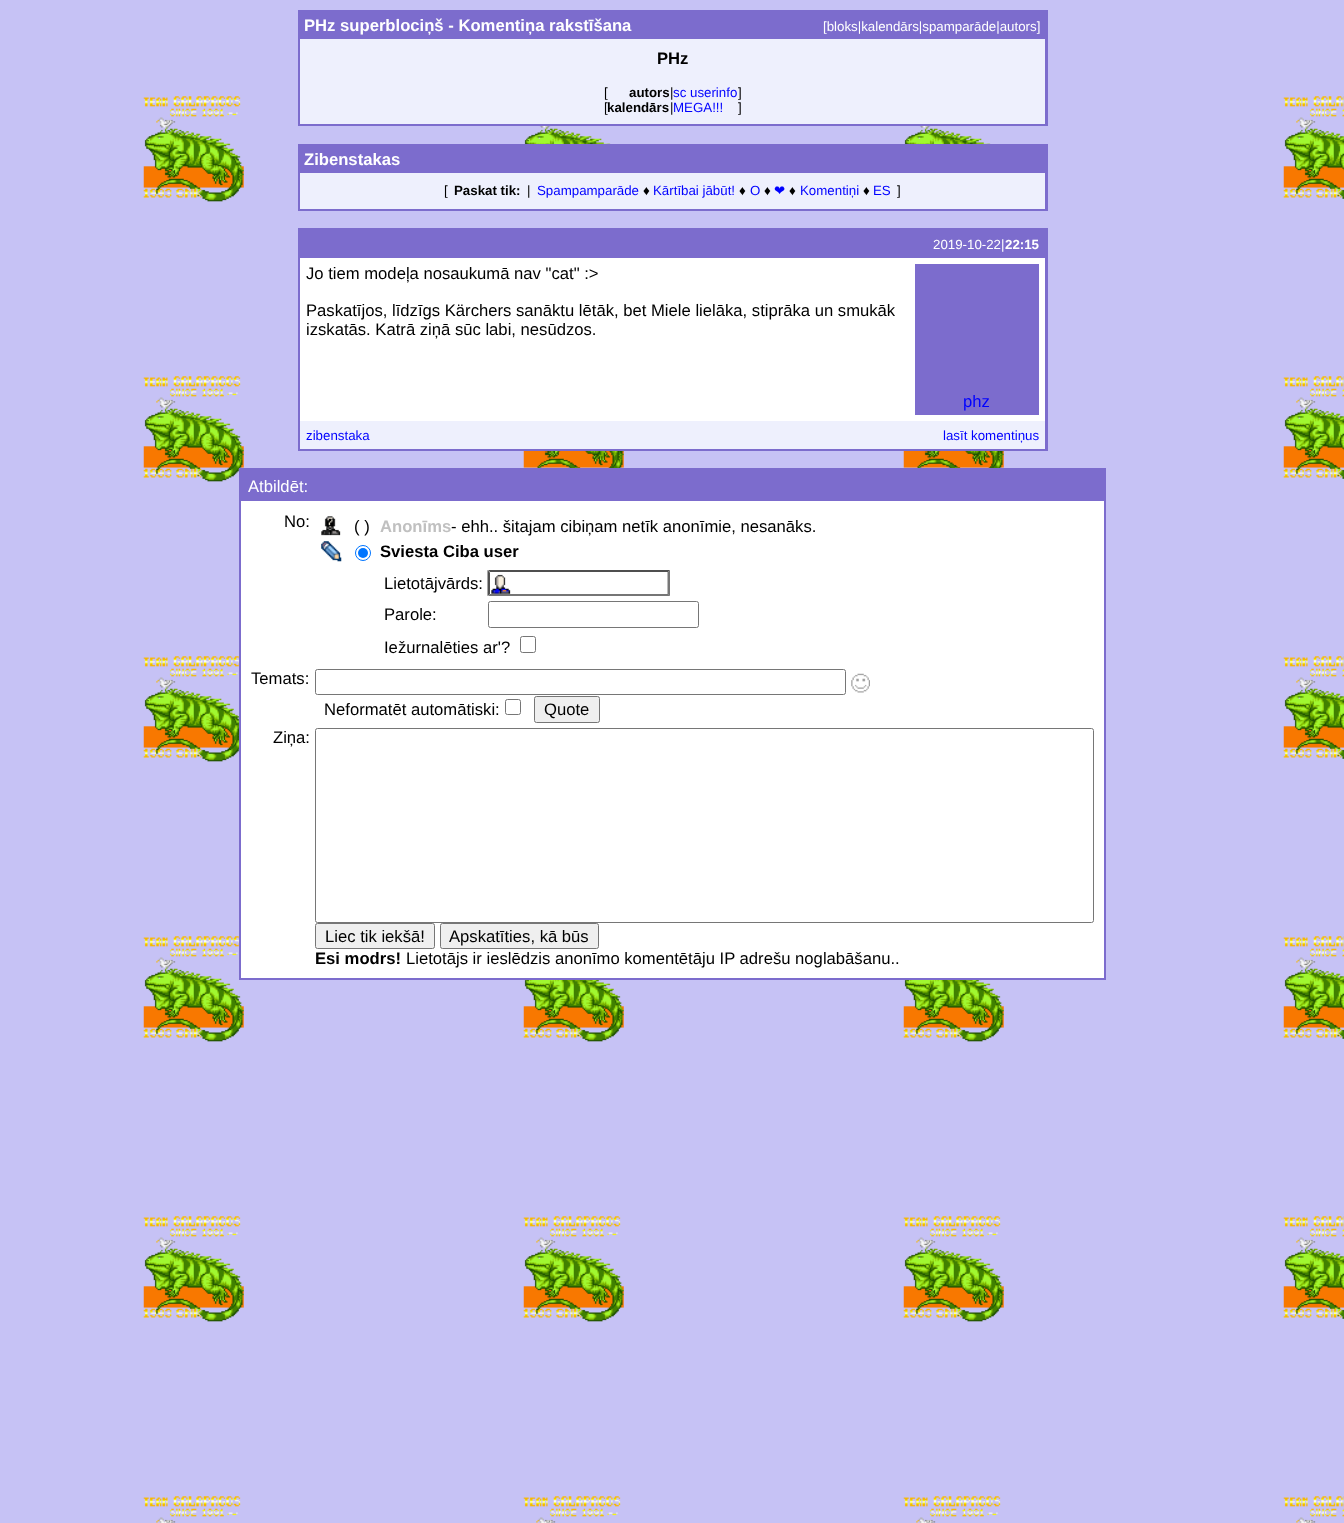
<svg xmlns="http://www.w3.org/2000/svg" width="1344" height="1523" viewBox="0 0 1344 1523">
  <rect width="100%" height="100%" fill="#c6c2f5"/>
  <image x="143" y="96" width="1201" height="1427" href="img1.png"/>
  <rect x="298" y="10" width="750" height="116" fill="#7c6ccd"/>
  <text x="304" y="31" font-family="Liberation Sans" font-size="16.65" font-weight="bold" fill="#ffffff">PHz superblociņš - Komentiņa rakstīšana</text>
  <text x="823" y="31" font-family="Liberation Sans" font-size="13.3" fill="#ffffff">[bloks|kalendārs|spamparāde|autors]</text>
  <rect x="300" y="39" width="745" height="85" fill="#eef0fd"/>
  <text x="657" y="64" font-family="Liberation Sans" font-size="16.65" font-weight="bold" fill="#000000">PHz</text>
  <text x="604" y="97" font-family="Liberation Sans" font-size="13.3" fill="#000000">[</text>
  <text x="629" y="97" font-family="Liberation Sans" font-size="13.3" font-weight="bold" fill="#000000">autors</text>
  <text x="670" y="97" font-family="Liberation Sans" font-size="13.3" fill="#000000">|</text>
  <text x="673" y="97" font-family="Liberation Sans" font-size="13.3" fill="#0000ff">sc userinfo</text>
  <text x="738" y="97" font-family="Liberation Sans" font-size="13.3" fill="#000000">]</text>
  <text x="604" y="112" font-family="Liberation Sans" font-size="13.3" fill="#000000">[</text>
  <text x="607" y="112" font-family="Liberation Sans" font-size="13.3" font-weight="bold" fill="#000000">kalendārs</text>
  <text x="670" y="112" font-family="Liberation Sans" font-size="13.3" fill="#000000">|</text>
  <text x="673" y="112" font-family="Liberation Sans" font-size="13.3" fill="#0000ff">MEGA!!!</text>
  <text x="738" y="112" font-family="Liberation Sans" font-size="13.3" fill="#000000">]</text>
  <rect x="298" y="144" width="750" height="67" fill="#7c6ccd"/>
  <text x="304" y="165" font-family="Liberation Sans" font-size="16.65" font-weight="bold" fill="#ffffff">Zibenstakas</text>
  <rect x="300" y="173" width="745" height="36" fill="#eef0fd"/>
  <text x="444" y="195" font-family="Liberation Sans" font-size="13.3" fill="#000000">[</text>
  <text x="454" y="195" font-family="Liberation Sans" font-size="13.3" font-weight="bold" fill="#000000">Paskat tik:</text>
  <text x="527" y="195" font-family="Liberation Sans" font-size="13.3" fill="#000000">|</text>
  <text x="537" y="195" font-family="Liberation Sans" font-size="13.3" fill="#0000ff">Spampamparāde</text>
  <text x="643" y="195" font-family="Liberation Sans" font-size="13.3" fill="#000000">♦</text>
  <text x="653" y="195" font-family="Liberation Sans" font-size="13.3" fill="#0000ff">Kārtībai jābūt!</text>
  <text x="739" y="195" font-family="Liberation Sans" font-size="13.3" fill="#000000">♦</text>
  <text x="750" y="195" font-family="Liberation Sans" font-size="13.3" fill="#0000ff">O</text>
  <text x="764" y="195" font-family="Liberation Sans" font-size="13.3" fill="#000000">♦</text>
  <text x="774" y="195" font-family="DejaVu Sans" font-size="13.3" fill="#0000ff">❤</text>
  <text x="789" y="195" font-family="Liberation Sans" font-size="13.3" fill="#000000">♦</text>
  <text x="800" y="195" font-family="Liberation Sans" font-size="13.3" fill="#0000ff">Komentiņi</text>
  <text x="863" y="195" font-family="Liberation Sans" font-size="13.3" fill="#000000">♦</text>
  <text x="873" y="195" font-family="Liberation Sans" font-size="13.3" fill="#0000ff">ES</text>
  <text x="897" y="195" font-family="Liberation Sans" font-size="13.3" fill="#000000">]</text>
  <rect x="298" y="228" width="750" height="223" fill="#7c6ccd"/>
  <text x="933" y="249" font-family="Liberation Sans" font-size="13.3" fill="#ffffff">2019-10-22|</text>
  <text x="1005" y="249" font-family="Liberation Sans" font-size="13.3" font-weight="bold" fill="#ffffff">22:15</text>
  <rect x="300" y="258" width="745" height="163" fill="#ffffff"/>
  <text x="306" y="279" font-family="Liberation Sans" font-size="16.65" fill="#000000">Jo tiem modeļa nosaukumā nav "cat" :&gt;</text>
  <text x="306" y="316" font-family="Liberation Sans" font-size="16.65" fill="#000000">Paskatījos, līdzīgs Kärchers sanāktu lētāk, bet Miele lielāka, stiprāka un smukāk</text>
  <text x="306" y="335" font-family="Liberation Sans" font-size="16.65" fill="#000000">izskatās. Katrā ziņā sūc labi, nesūdzos.</text>
  <rect x="915" y="264" width="124" height="151" fill="#7c6ccd"/>
  <text x="963" y="407" font-family="Liberation Sans" font-size="16.65" fill="#0000ff">phz</text>
  <rect x="300" y="421" width="745" height="28" fill="#eef0fd"/>
  <text x="306" y="440" font-family="Liberation Sans" font-size="13.3" fill="#0000ff">zibenstaka</text>
  <text x="943" y="440" font-family="Liberation Sans" font-size="13.3" fill="#0000ff">lasīt komentiņus</text>
  <rect x="239" y="468" width="867" height="512" fill="#7c6ccd"/>
  <text x="248" y="492" font-family="Liberation Sans" font-size="16.65" fill="#ffffff">Atbildēt:</text>
  <rect x="241" y="501" width="863" height="477" fill="#ffffff"/>
  <text x="284" y="527" font-family="Liberation Sans" font-size="16.65" fill="#000000">No:</text>
  <image x="321" y="516" width="20" height="20" href="img2.png"/>
  <text x="354" y="532" font-family="Liberation Sans" font-size="16.65" fill="#000000">( )</text>
  <text x="380" y="532" font-family="Liberation Sans" font-size="16.65" font-weight="bold" fill="#c0c0c0">Anonīms</text>
  <text x="451" y="532" font-family="Liberation Sans" font-size="16.65" fill="#000000">- ehh.. šitajam cibiņam netīk anonīmie, nesanāks.</text>
  <image x="321" y="541" width="21" height="21" href="img3.png"/>
  <circle cx="363" cy="553" r="7.5" fill="none" stroke="#0075ff"/>
  <circle cx="363" cy="553" r="5" fill="#0075ff"/>
  <text x="380" y="557" font-family="Liberation Sans" font-size="16.65" font-weight="bold" fill="#000000">Sviesta Ciba user</text>
  <text x="384" y="589" font-family="Liberation Sans" font-size="16.65" fill="#000000">Lietotājvārds:</text>
  <image x="491" y="574" width="20" height="20" href="img4.png"/>
  <path d="M488 570H670L668 572H490Z" fill="#4f4f4f"/>
  <path d="M670 570V596L667.5 594V572.5Z" fill="#767676"/>
  <path d="M670 596H488L490 594H668Z" fill="#767676"/>
  <path d="M487.5 596V570L490 572.5V594Z" fill="#4f4f4f"/>
  <text x="384" y="620" font-family="Liberation Sans" font-size="16.65" fill="#000000">Parole:</text>
  <rect x="488.5" y="601.5" width="210" height="26" rx="2" fill="none" stroke="#767676"/>
  <text x="384" y="653" font-family="Liberation Sans" font-size="16.65" fill="#000000">Iežurnalēties ar'?</text>
  <rect x="520.5" y="636.5" width="15" height="16" rx="2" fill="none" stroke="#767676"/>
  <text x="251" y="684" font-family="Liberation Sans" font-size="16.65" fill="#000000">Temats:</text>
  <rect x="315.5" y="669.5" width="530" height="25" rx="2" fill="none" stroke="#767676"/>
  <image x="851" y="673" width="19" height="20" href="img5.png"/>
  <text x="324" y="715" font-family="Liberation Sans" font-size="16.65" fill="#000000">Neformatēt automātiski:</text>
  <rect x="505.5" y="699.5" width="15" height="15" rx="2" fill="none" stroke="#767676"/>
  <rect x="534.5" y="696.5" width="65" height="26" rx="2" fill="#efefef" stroke="#767676"/>
  <text x="544" y="715" font-family="Liberation Sans" font-size="16.65" fill="#000000">Quote</text>
  <text x="273" y="743" font-family="Liberation Sans" font-size="16.65" fill="#000000">Ziņa:</text>
  <rect x="315.5" y="728.5" width="778" height="194" rx="2" fill="none" stroke="#767676"/>
  <rect x="315.5" y="923.5" width="119" height="25" rx="2" fill="#efefef" stroke="#767676"/>
  <text x="325" y="942" font-family="Liberation Sans" font-size="16.65" fill="#000000">Liec tik iekšā!</text>
  <rect x="440.5" y="923.5" width="158" height="25" rx="2" fill="#efefef" stroke="#767676"/>
  <text x="449" y="942" font-family="Liberation Sans" font-size="16.65" fill="#000000">Apskatīties, kā būs</text>
  <text x="315" y="964" font-family="Liberation Sans" font-size="16.65" font-weight="bold" fill="#000000">Esi modrs!</text>
  <text x="406" y="964" font-family="Liberation Sans" font-size="16.65" fill="#000000">Lietotājs ir ieslēdzis anonīmo komentētāju IP adrešu noglabāšanu..</text>
</svg>
